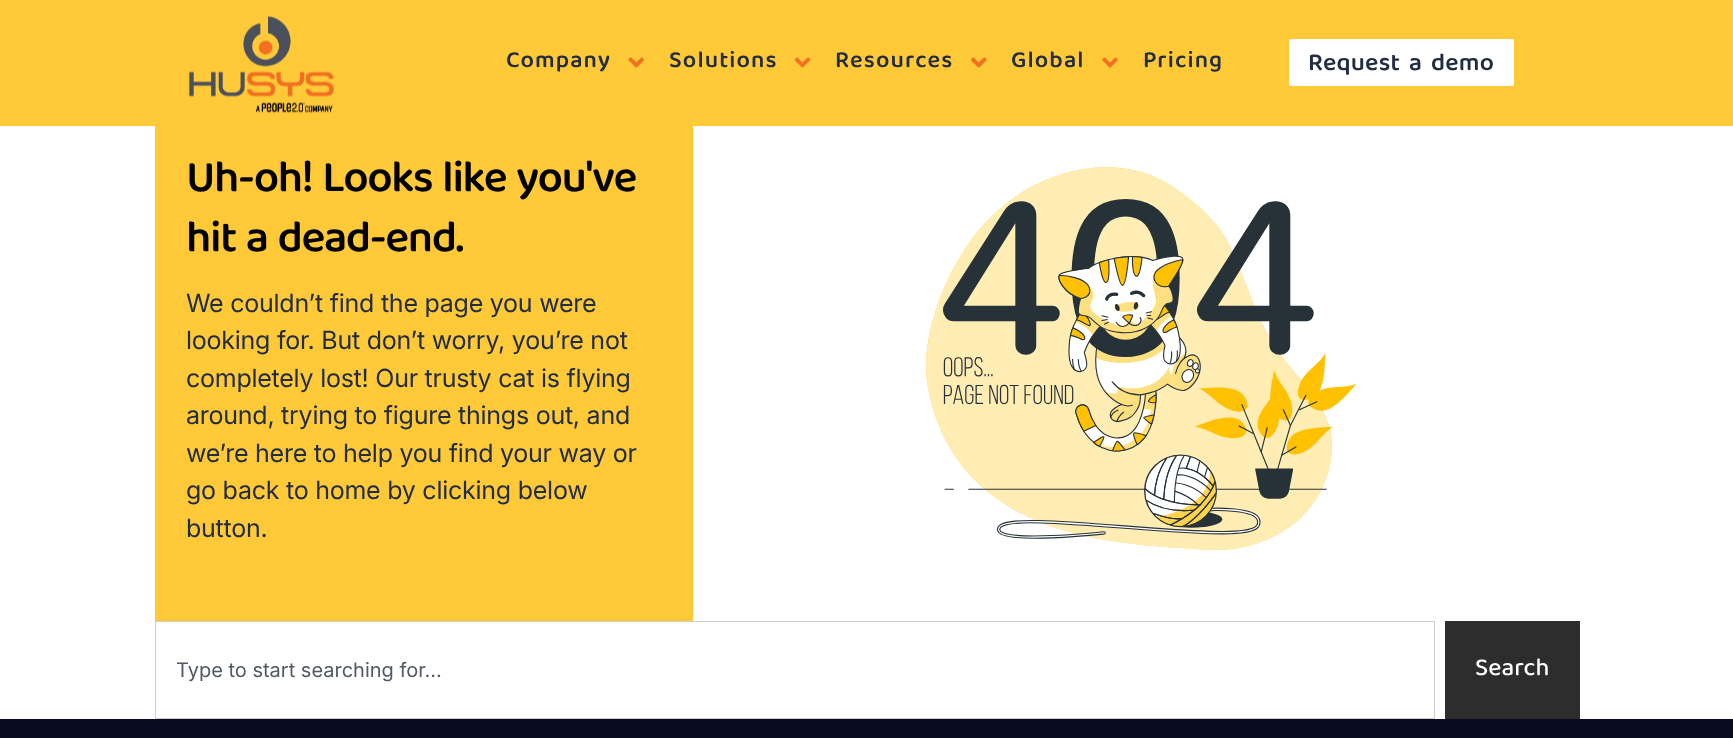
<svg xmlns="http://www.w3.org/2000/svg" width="1733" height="738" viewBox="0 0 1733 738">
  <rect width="100%" height="100%" fill="#ffffff"/>
  <rect x="0" y="0" width="1733" height="126" fill="#ffc938"/>
  <image x="189" y="16" width="145" height="97" href="img1.png"/>
  <text x="506" y="67" font-family="'Baloo Tamma 2'" font-size="23.75" font-weight="600" letter-spacing="1.1" fill="#222d42">Company</text>
  <image x="628" y="57" width="16" height="11" href="img2.png"/>
  <text x="669" y="67" font-family="'Baloo Tamma 2'" font-size="23.75" font-weight="600" letter-spacing="1.1" fill="#222d42">Solutions</text>
  <image x="794" y="57" width="17" height="11" href="img3.png"/>
  <text x="835" y="67" font-family="'Baloo Tamma 2'" font-size="23.75" font-weight="600" letter-spacing="1.1" fill="#222d42">Resources</text>
  <image x="971" y="57" width="16" height="11" href="img4.png"/>
  <text x="1011" y="67" font-family="'Baloo Tamma 2'" font-size="23.75" font-weight="600" letter-spacing="1.1" fill="#222d42">Global</text>
  <image x="1102" y="57" width="16" height="11" href="img5.png"/>
  <text x="1143" y="67" font-family="'Baloo Tamma 2'" font-size="23.75" font-weight="600" letter-spacing="1.1" fill="#222d42">Pricing</text>
  <rect x="1287" y="37" width="229" height="51" rx="4" fill="#ffffff" stroke="#ffc938" stroke-width="4"/>
  <text x="1308" y="70" word-spacing="2" font-family="'Baloo Tamma 2'" font-size="25" font-weight="600" letter-spacing="0.25" fill="#222d42">Request a demo</text>
  <rect x="155" y="126" width="538" height="495" fill="#ffc938"/>
  <text x="186" y="191" word-spacing="-0.5" font-family="'Baloo Tamma 2'" font-size="45" font-weight="600" letter-spacing="-1.4" fill="#000204">Uh-oh! Looks like you've</text>
  <text x="186" y="251" word-spacing="-0.5" font-family="'Baloo Tamma 2'" font-size="45" font-weight="600" letter-spacing="-1.4" fill="#000204">hit a dead-end.</text>
  <text x="186" y="312" font-family="Inter" font-size="25" letter-spacing="-0.25" fill="#222d42">We couldn’t find the page you were</text>
  <text x="186" y="349" font-family="Inter" font-size="25" letter-spacing="-0.25" fill="#222d42">looking for. But don’t worry, you’re not</text>
  <text x="186" y="387" font-family="Inter" font-size="25" letter-spacing="-0.25" fill="#222d42">completely lost! Our trusty cat is flying</text>
  <text x="186" y="424" font-family="Inter" font-size="25" letter-spacing="-0.25" fill="#222d42">around, trying to figure things out, and</text>
  <text x="186" y="462" font-family="Inter" font-size="25" letter-spacing="-0.25" fill="#222d42">we’re here to help you find your way or</text>
  <text x="186" y="499" font-family="Inter" font-size="25" letter-spacing="-0.25" fill="#222d42">go back to home by clicking below</text>
  <text x="186" y="537" font-family="Inter" font-size="25" letter-spacing="-0.25" fill="#222d42">button.</text>
  <image x="925" y="167" width="432" height="383" href="img6.png"/>
  <rect x="155.5" y="621.5" width="1279" height="97" fill="none" stroke="#cdcdcd"/>
  <text x="176" y="677" font-family="Inter" font-size="20" fill="#515962">Type to start searching for...</text>
  <rect x="1445" y="621" width="135" height="98" fill="#2d2d2d"/>
  <text x="1475" y="675" font-family="'Baloo Tamma 2'" font-size="25" font-weight="500" fill="#ffffff">Search</text>
  <rect x="0" y="719" width="1733" height="19" fill="#070c23"/>
</svg>
